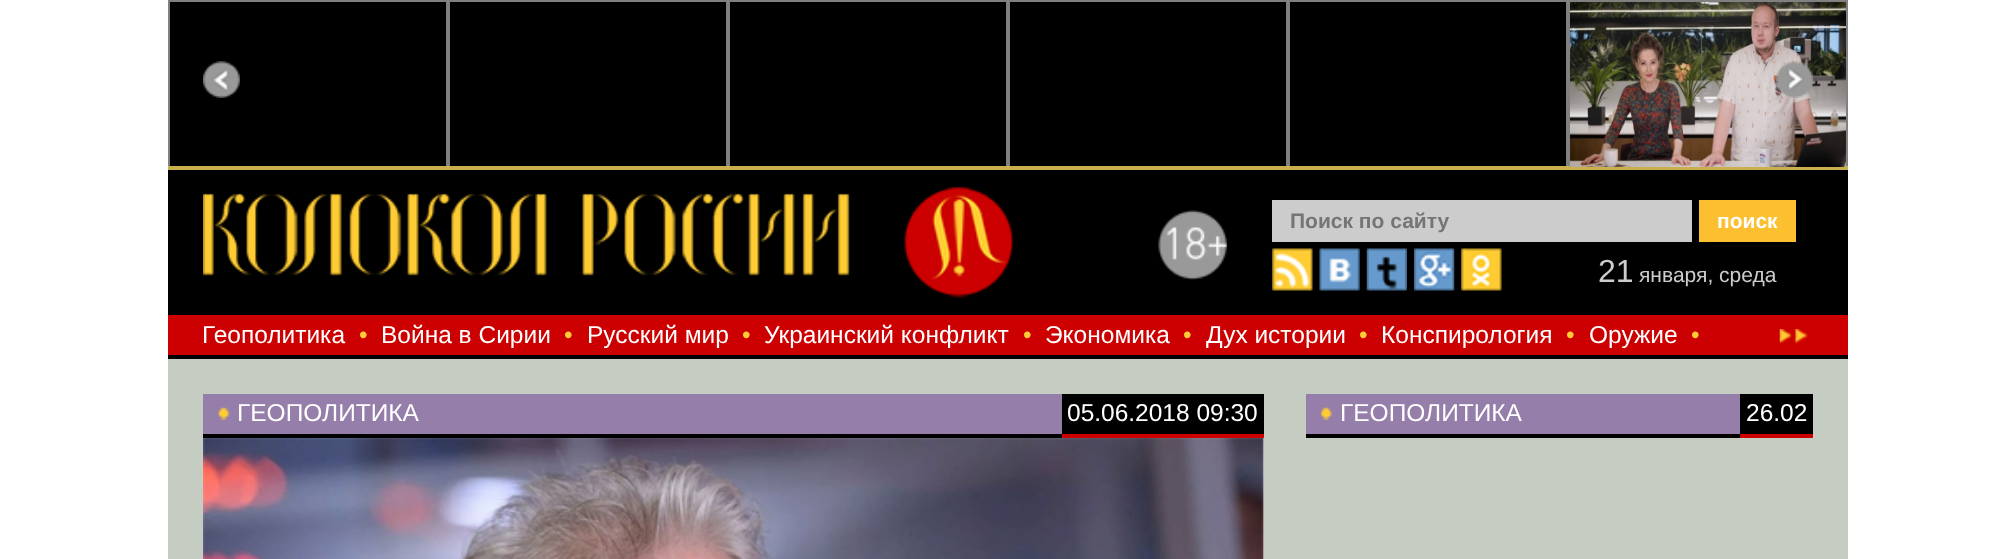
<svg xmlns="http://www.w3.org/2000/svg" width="2014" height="559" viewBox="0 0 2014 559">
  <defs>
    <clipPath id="clip1"><rect x="168" y="0" width="1680" height="166"/></clipPath>
  </defs>
  <rect width="100%" height="100%" fill="#ffffff"/>
  <rect x="170" y="2" width="1396" height="164" fill="#000000"/>
  <rect x="168" y="166" width="1680" height="4" fill="#c8b04f"/>
  <g clip-path="url(#clip1)">
    <rect x="169" y="1" width="278" height="168" fill="none" stroke="#808080" stroke-width="2"/>
    <rect x="449" y="1" width="278" height="168" fill="none" stroke="#808080" stroke-width="2"/>
    <rect x="729" y="1" width="278" height="168" fill="none" stroke="#808080" stroke-width="2"/>
    <rect x="1009" y="1" width="278" height="168" fill="none" stroke="#808080" stroke-width="2"/>
    <rect x="1289" y="1" width="278" height="168" fill="none" stroke="#808080" stroke-width="2"/>
    <rect x="1569" y="1" width="278" height="168" fill="none" stroke="#808080" stroke-width="2"/>
  </g>
  <image x="1570" y="2" width="276" height="165" href="img1.png"/>
  <image x="203" y="61" width="37" height="37" href="img2.png"/>
  <image x="1776" y="61" width="37" height="37" href="img3.png"/>
  <rect x="168" y="170" width="1680" height="145" fill="#000000"/>
  <image x="203" y="187" width="811" height="111" href="img4.png"/>
  <image x="1158" y="210" width="69" height="70" href="img5.png"/>
  <rect x="1272" y="200" width="420" height="42" fill="#cccccc"/>
  <text x="1290" y="228" font-family="Liberation Sans" font-size="21" font-weight="bold" fill="#757575">Поиск по сайту</text>
  <rect x="1699" y="200" width="97" height="42" fill="#fcbf30"/>
  <text x="1717" y="228" font-family="Liberation Sans" font-size="21" font-weight="bold" fill="#ffffff">поиск</text>
  <image x="1272" y="248" width="41" height="43" href="img6.png"/>
  <image x="1319" y="248" width="41" height="43" href="img7.png"/>
  <image x="1366" y="248" width="41" height="43" href="img8.png"/>
  <image x="1414" y="248" width="41" height="43" href="img9.png"/>
  <image x="1461" y="248" width="41" height="43" href="img10.png"/>
  <text x="1598" y="282" font-family="Liberation Sans" font-size="32" fill="#cccccc">21</text>
  <text x="1639" y="282" font-family="Liberation Sans" font-size="21" fill="#cccccc">января, среда</text>
  <rect x="168" y="315" width="1680" height="40" fill="#cc0000"/>
  <rect x="168" y="355" width="1680" height="4" fill="#000000"/>
  <text x="202" y="343" font-family="Liberation Sans" font-size="24.5" fill="#ffffff">Геополитика</text>
  <text x="359" y="343" font-family="Liberation Sans" font-size="24.5" fill="#ffcc33">•</text>
  <text x="381" y="343" font-family="Liberation Sans" font-size="24.5" fill="#ffffff">Война в Сирии</text>
  <text x="564" y="343" font-family="Liberation Sans" font-size="24.5" fill="#ffcc33">•</text>
  <text x="587" y="343" font-family="Liberation Sans" font-size="24.5" fill="#ffffff">Русский мир</text>
  <text x="742" y="343" font-family="Liberation Sans" font-size="24.5" fill="#ffcc33">•</text>
  <text x="764" y="343" font-family="Liberation Sans" font-size="24.5" fill="#ffffff">Украинский конфликт</text>
  <text x="1023" y="343" font-family="Liberation Sans" font-size="24.5" fill="#ffcc33">•</text>
  <text x="1045" y="343" font-family="Liberation Sans" font-size="24.5" fill="#ffffff">Экономика</text>
  <text x="1183" y="343" font-family="Liberation Sans" font-size="24.5" fill="#ffcc33">•</text>
  <text x="1206" y="343" font-family="Liberation Sans" font-size="24.5" fill="#ffffff">Дух истории</text>
  <text x="1359" y="343" font-family="Liberation Sans" font-size="24.5" fill="#ffcc33">•</text>
  <text x="1381" y="343" font-family="Liberation Sans" font-size="24.5" fill="#ffffff">Конспирология</text>
  <text x="1566" y="343" font-family="Liberation Sans" font-size="24.5" fill="#ffcc33">•</text>
  <text x="1589" y="343" font-family="Liberation Sans" font-size="24.5" fill="#ffffff">Оружие</text>
  <text x="1691" y="343" font-family="Liberation Sans" font-size="24.5" fill="#ffcc33">•</text>
  <image x="1779" y="329" width="29" height="14" href="img11.png"/>
  <rect x="168" y="359" width="1680" height="200" fill="#c5ccc2"/>
  <rect x="203" y="394" width="859" height="40" fill="#957ea9"/>
  <image x="218" y="407" width="12" height="13" href="img12.png"/>
  <rect x="203" y="434" width="859" height="4" fill="#000000"/>
  <text x="237" y="421" font-family="Liberation Sans" font-size="24.5" fill="#ffffff">ГЕОПОЛИТИКА</text>
  <rect x="1062" y="394" width="202" height="40" fill="#000000"/>
  <rect x="1062" y="434" width="202" height="4" fill="#cc0000"/>
  <text x="1067" y="421" font-family="Liberation Sans" font-size="24.5" fill="#ffffff">05.06.2018 09:30</text>
  <rect x="1263" y="438" width="1" height="121" fill="#ffffff"/>
  <image x="203" y="438" width="1061" height="121" href="img13.png"/>
  <rect x="1306" y="394" width="434" height="40" fill="#957ea9"/>
  <image x="1321" y="407" width="11" height="13" href="img14.png"/>
  <rect x="1306" y="434" width="434" height="4" fill="#000000"/>
  <text x="1340" y="421" font-family="Liberation Sans" font-size="24.5" fill="#ffffff">ГЕОПОЛИТИКА</text>
  <rect x="1740" y="394" width="73" height="40" fill="#000000"/>
  <rect x="1740" y="434" width="73" height="4" fill="#cc0000"/>
  <text x="1746" y="421" font-family="Liberation Sans" font-size="24.5" fill="#ffffff">26.02</text>
</svg>
